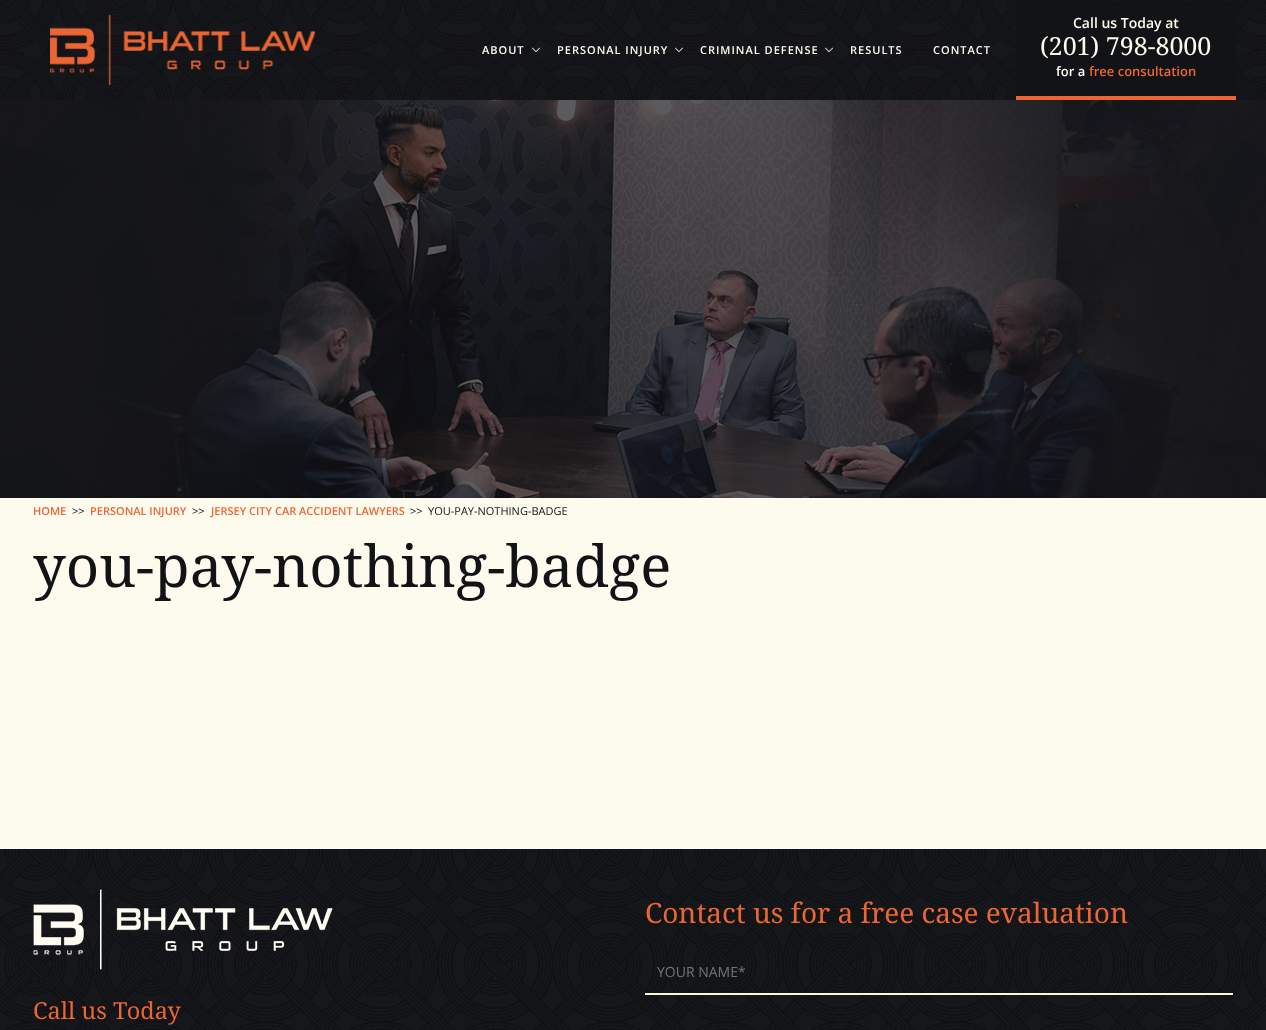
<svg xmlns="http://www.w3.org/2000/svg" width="1266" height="1030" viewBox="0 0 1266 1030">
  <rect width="100%" height="100%" fill="#fdfaee"/>
  <image x="0" y="0" width="1266" height="100" href="img1.png"/>
  <image x="50" y="15" width="265" height="70" href="img2.png"/>
  <text x="482" y="54" font-family="Open Sans" font-size="11" font-weight="600" letter-spacing="1" fill="#fefaee">ABOUT</text>
  <image x="532" y="47" width="8" height="5" href="img3.png"/>
  <text x="557" y="54" font-family="Open Sans" font-size="11" font-weight="600" letter-spacing="1" fill="#fefaee">PERSONAL INJURY</text>
  <image x="675" y="47" width="8" height="5" href="img4.png"/>
  <text x="700" y="54" font-family="Open Sans" font-size="11" font-weight="600" letter-spacing="1" fill="#fefaee">CRIMINAL DEFENSE</text>
  <image x="825" y="47" width="8" height="5" href="img5.png"/>
  <text x="850" y="54" font-family="Open Sans" font-size="11" font-weight="600" letter-spacing="1" fill="#fefaee">RESULTS</text>
  <text x="933" y="54" font-family="Open Sans" font-size="11" font-weight="600" letter-spacing="1" fill="#fefaee">CONTACT</text>
  <rect x="1016" y="1" width="220" height="95" fill="#121317"/>
  <rect x="1016" y="96" width="220" height="4" fill="#ec6633"/>
  <text x="1073" y="28" font-family="Open Sans" font-size="14" font-weight="600" fill="#fefaee">Call us Today at</text>
  <text x="1040" y="55" font-family="Droid Serif" font-size="25" fill="#fefaee">(201) 798-8000</text>
  <text x="1056" y="76" font-family="Open Sans" font-size="13" font-weight="600" fill="#fefaee">for a</text>
  <text x="1089" y="76" font-family="Open Sans" font-size="13" font-weight="600" fill="#ec6633">free consultation</text>
  <image x="0" y="100" width="1266" height="398" href="img6.png"/>
  <text x="33" y="515" font-family="Open Sans" font-size="11" font-weight="600" fill="#ec6633">HOME</text>
  <text x="72" y="515" font-family="Open Sans" font-size="11" fill="#121317">&gt;&gt;</text>
  <text x="90" y="515" font-family="Open Sans" font-size="11" font-weight="600" fill="#ec6633">PERSONAL INJURY</text>
  <text x="192" y="515" font-family="Open Sans" font-size="11" fill="#121317">&gt;&gt;</text>
  <text x="211" y="515" font-family="Open Sans" font-size="11" font-weight="600" fill="#ec6633">JERSEY CITY CAR ACCIDENT LAWYERS</text>
  <text x="410" y="515" font-family="Open Sans" font-size="11" fill="#121317">&gt;&gt;</text>
  <text x="428" y="515" font-family="Open Sans" font-size="11" fill="#121317">YOU-PAY-NOTHING-BADGE</text>
  <text x="33" y="587" font-family="Droid Serif" font-size="58" fill="#121317">you-pay-nothing-badge</text>
  <image x="0" y="849" width="1266" height="181" href="img7.png"/>
  <text x="645" y="923" font-family="Droid Serif" font-size="28" fill="#ec6633">Contact us for a free case evaluation</text>
  <rect x="645" y="993" width="588" height="2" fill="#fcf7da"/>
  <text x="657" y="977" font-family="Open Sans" font-size="14" fill="#757575">YOUR NAME*</text>
  <image x="33" y="889" width="300" height="81" href="img8.png"/>
  <text x="33" y="1019" font-family="Droid Serif" font-size="23.5" fill="#ec6633">Call us Today</text>
</svg>
